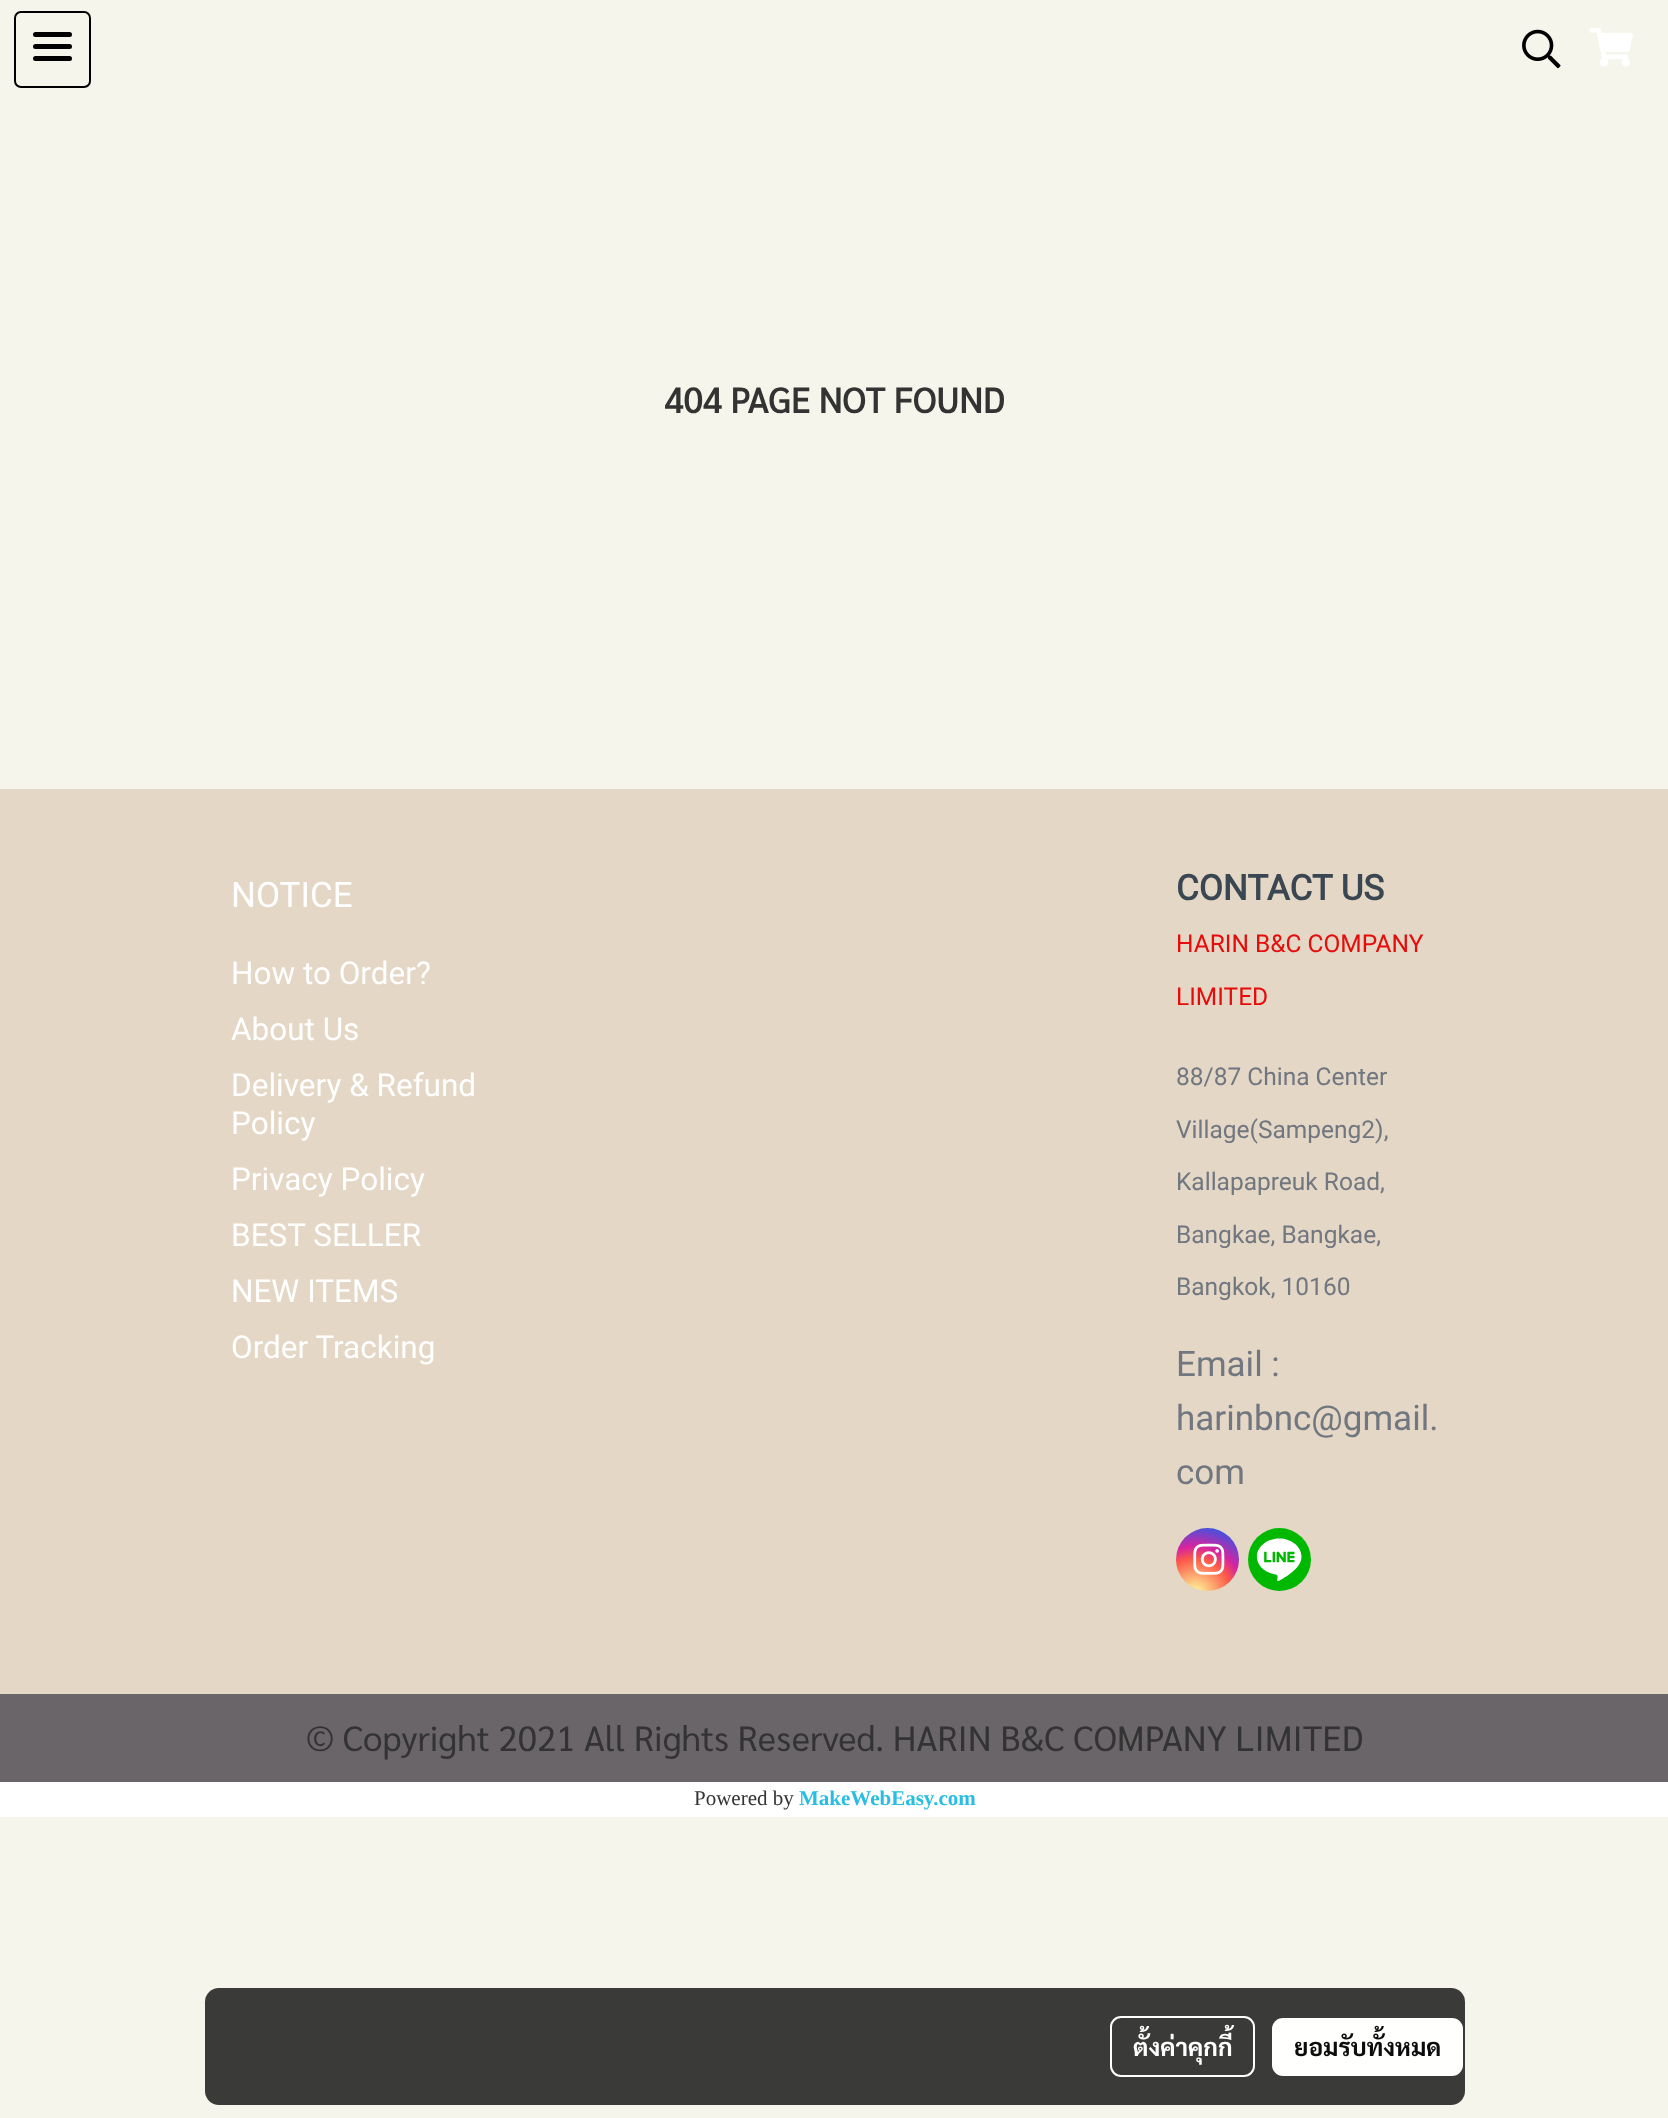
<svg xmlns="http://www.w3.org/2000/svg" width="1668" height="2118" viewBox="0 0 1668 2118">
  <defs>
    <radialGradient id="g1" gradientUnits="userSpaceOnUse" cx="1195" cy="1595" r="81"><stop offset="0" stop-color="#fdf497"/><stop offset="0.05" stop-color="#fdf497"/><stop offset="0.45" stop-color="#fd5949"/><stop offset="0.6" stop-color="#d6249f"/><stop offset="0.9" stop-color="#285aeb"/></radialGradient>
  </defs>
  <rect width="100%" height="100%" fill="#f5f5eb"/>
  <rect x="15" y="12" width="75" height="75" rx="6" fill="none" stroke="#000000" stroke-width="2"/>
  <rect x="33" y="44" width="39" height="5" rx="2.5" fill="#000000"/>
  <rect x="33" y="32" width="39" height="5" rx="2.5" fill="#000000"/>
  <rect x="33" y="56" width="39" height="5" rx="2.5" fill="#000000"/>
  <image x="1522" y="29" width="39" height="40" href="img1.png"/>
  <image x="1589" y="28" width="44" height="39" href="img2.png"/>
  <text x="664" y="413" font-family="Sarabun" font-size="35" font-weight="bold" fill="#333333">404 PAGE NOT FOUND</text>
  <rect x="0" y="789" width="1668" height="905" fill="#e4d7c5"/>
  <text x="231" y="907" font-family="Roboto" font-size="35" fill="#ffffff">NOTICE</text>
  <text x="231" y="984" font-family="Roboto" font-size="31.5" fill="#ffffff">How to Order?</text>
  <text x="231" y="1040" font-family="Roboto" font-size="31.5" fill="#ffffff">About Us</text>
  <text x="231" y="1096" font-family="Roboto" font-size="31.5" fill="#ffffff">Delivery &amp; Refund</text>
  <text x="231" y="1134" font-family="Roboto" font-size="31.5" fill="#ffffff">Policy</text>
  <text x="231" y="1190" font-family="Roboto" font-size="31.5" fill="#ffffff">Privacy Policy</text>
  <text x="231" y="1246" font-family="Roboto" font-size="31.5" fill="#ffffff">BEST SELLER</text>
  <text x="231" y="1302" font-family="Roboto" font-size="31.5" fill="#ffffff">NEW ITEMS</text>
  <text x="231" y="1358" font-family="Roboto" font-size="31.5" fill="#ffffff">Order Tracking</text>
  <text x="1176" y="900" font-family="Roboto" font-size="35" font-weight="bold" fill="#3a4753">CONTACT US</text>
  <text x="1176" y="952" font-family="Roboto" font-size="24.5" fill="#e60c0b">HARIN B&amp;C COMPANY</text>
  <text x="1176" y="1005" font-family="Roboto" font-size="24.5" fill="#e60c0b">LIMITED</text>
  <text x="1176" y="1085" font-family="Roboto" font-size="24.5" fill="#717780">88/87 China Center</text>
  <text x="1176" y="1138" font-family="Roboto" font-size="24.5" fill="#717780">Village(Sampeng2),</text>
  <text x="1176" y="1190" font-family="Roboto" font-size="24.5" fill="#717780">Kallapapreuk Road,</text>
  <text x="1176" y="1243" font-family="Roboto" font-size="24.5" fill="#717780">Bangkae, Bangkae,</text>
  <text x="1176" y="1295" font-family="Roboto" font-size="24.5" fill="#717780">Bangkok, 10160</text>
  <text x="1176" y="1376" font-family="Roboto" font-size="35" fill="#717780">Email :</text>
  <text x="1176" y="1430" font-family="Roboto" font-size="35" fill="#717780">harinbnc@gmail.</text>
  <text x="1176" y="1484" font-family="Roboto" font-size="35" fill="#717780">com</text>
  <circle cx="1207.5" cy="1559.5" r="31.5" fill="url(#g1)"/>
  <image x="1193" y="1543" width="32" height="32" href="img3.png"/>
  <circle cx="1279.5" cy="1559.5" r="31.5" fill="#00b800"/>
  <image x="1248" y="1528" width="62" height="53" href="img4.png"/>
  <rect x="0" y="1694" width="1668" height="88" fill="#6a6569"/>
  <text x="306" y="1751" font-family="Sarabun" font-size="35" fill="#333333">© Copyright 2021 All Rights Reserved. HARIN B&amp;C COMPANY LIMITED</text>
  <rect x="0" y="1782" width="1668" height="35" fill="#ffffff"/>
  <text x="694" y="1805" font-family="Liberation Serif" font-size="21" fill="#333333">Powered by</text>
  <text x="799" y="1805" font-family="Liberation Serif" font-size="21" font-weight="bold" fill="#28bee3">MakeWebEasy.com</text>
  <rect x="205" y="1988" width="1260" height="117" rx="14" fill="#3a3a39"/>
  <rect x="1111" y="2017" width="143" height="59" rx="10" fill="none" stroke="#fffffe" stroke-width="2"/>
  <text x="1133" y="2056" font-family="'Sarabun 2'" font-size="24.5" font-weight="bold" fill="#ffffff">ตั้งค่าคุกกี้</text>
  <rect x="1272" y="2018" width="191" height="58" rx="11" fill="#fffffe"/>
  <text x="1294" y="2056" font-family="'Sarabun 2'" font-size="24.5" font-weight="bold" fill="#0c0c0c">ยอมรับทั้งหมด</text>
</svg>
